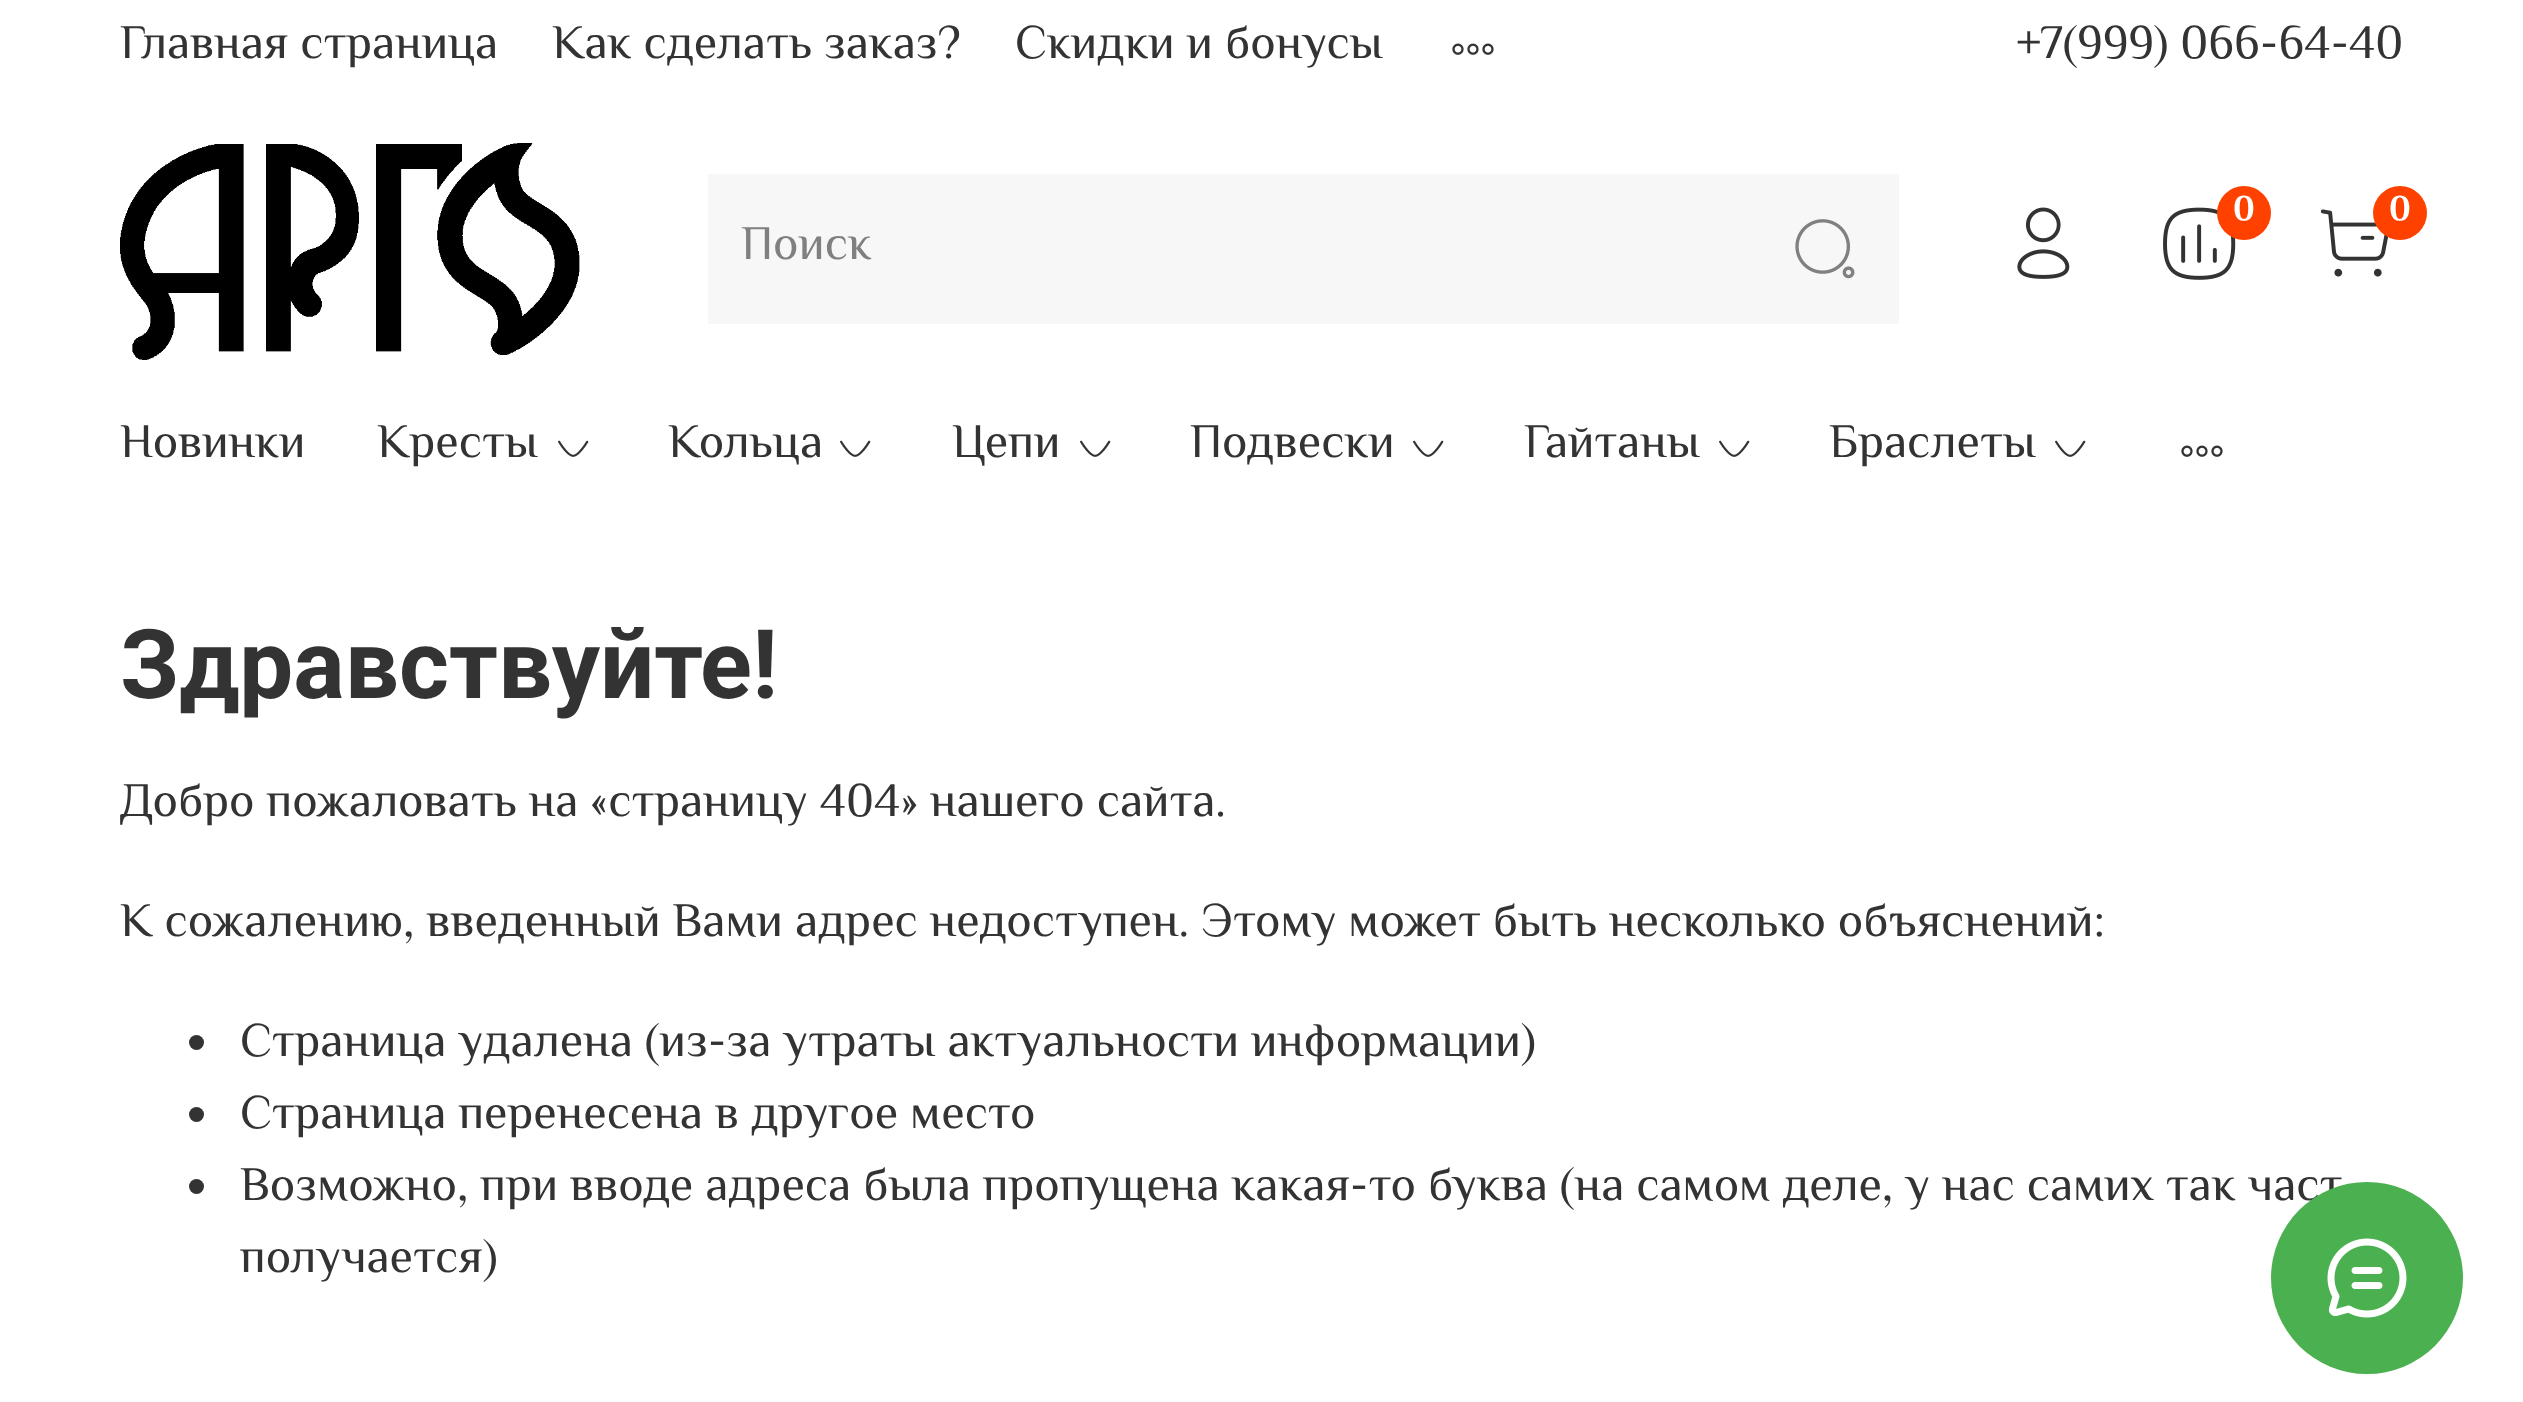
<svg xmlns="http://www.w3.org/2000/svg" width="2523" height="1402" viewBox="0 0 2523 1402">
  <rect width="100%" height="100%" fill="#ffffff"/>
  <text x="120" y="58" font-family="El Messiri" font-size="48" fill="#333333">Главная страница</text>
  <text x="552" y="58" font-family="El Messiri" font-size="48" fill="#333333">Как сделать заказ?</text>
  <text x="1015" y="58" font-family="El Messiri" font-size="48" fill="#333333">Скидки и бонусы</text>
  <image x="1452" y="43" width="42" height="12" href="img1.png"/>
  <text x="2016" y="58" font-family="El Messiri" font-size="48" fill="#333333">+7(999) 066-64-40</text>
  <image x="120" y="143" width="460" height="217" href="img2.png"/>
  <image x="2017" y="207" width="53" height="72" href="img3.png"/>
  <image x="2163" y="207" width="73" height="73" href="img4.png"/>
  <circle cx="2244" cy="213" r="27" fill="#ff4100"/>
  <text x="2233" y="220" font-family="El Messiri" font-size="36" font-weight="bold" fill="#ffffff">0</text>
  <image x="2320" y="209" width="68" height="68" href="img5.png"/>
  <circle cx="2400" cy="213" r="27" fill="#ff4100"/>
  <text x="2389" y="220" font-family="El Messiri" font-size="36" font-weight="bold" fill="#ffffff">0</text>
  <rect x="708" y="174" width="1191" height="150" fill="#f7f7f7"/>
  <text x="741" y="259" font-family="El Messiri" font-size="48" fill="#808080">Поиск</text>
  <image x="1795" y="219" width="60" height="60" href="img6.png"/>
  <text x="120" y="457" font-family="El Messiri" font-size="48" fill="#333333">Новинки</text>
  <text x="377" y="457" font-family="El Messiri" font-size="48" fill="#333333">Кресты</text>
  <image x="558" y="440" width="31" height="17" href="img7.png"/>
  <text x="668" y="457" font-family="El Messiri" font-size="48" fill="#333333">Кольца</text>
  <image x="840" y="440" width="31" height="17" href="img7.png"/>
  <text x="952" y="457" font-family="El Messiri" font-size="48" fill="#333333">Цепи</text>
  <image x="1080" y="440" width="31" height="17" href="img7.png"/>
  <text x="1190" y="457" font-family="El Messiri" font-size="48" fill="#333333">Подвески</text>
  <image x="1413" y="440" width="31" height="17" href="img7.png"/>
  <text x="1524" y="457" font-family="El Messiri" font-size="48" fill="#333333">Гайтаны</text>
  <image x="1719" y="440" width="31" height="17" href="img7.png"/>
  <text x="1829" y="457" font-family="El Messiri" font-size="48" fill="#333333">Браслеты</text>
  <image x="2055" y="440" width="31" height="17" href="img7.png"/>
  <image x="2181" y="445" width="42" height="12" href="img1.png"/>
  <text x="120" y="698" font-family="Roboto" font-size="96" font-weight="bold" fill="#333333">Здравствуйте!</text>
  <text x="120" y="816" font-family="El Messiri" font-size="48" fill="#333333">Добро пожаловать на «страницу 404» нашего сайта.</text>
  <text x="120" y="936" font-family="El Messiri" font-size="48" fill="#333333">К сожалению, введенный Вами адрес недоступен. Этому может быть несколько объяснений:</text>
  <circle cx="196.5" cy="1042.5" r="7.5" fill="#333333"/>
  <text x="240" y="1056" font-family="El Messiri" font-size="48" fill="#333333">Страница удалена (из-за утраты актуальности информации)</text>
  <circle cx="196.5" cy="1114.5" r="7.5" fill="#333333"/>
  <text x="240" y="1128" font-family="El Messiri" font-size="48" fill="#333333">Страница перенесена в другое место</text>
  <circle cx="196.5" cy="1186.5" r="7.5" fill="#333333"/>
  <text x="240" y="1200" font-family="El Messiri" font-size="48" fill="#333333">Возможно, при вводе адреса была пропущена какая-то буква (на самом деле, у нас самих так част</text>
  <text x="240" y="1272" font-family="El Messiri" font-size="48" fill="#333333">получается)</text>
  <circle cx="2367" cy="1278" r="96" fill="#4bb04f"/>
  <image x="2327" y="1238" width="80" height="80" href="img8.png"/>
</svg>
